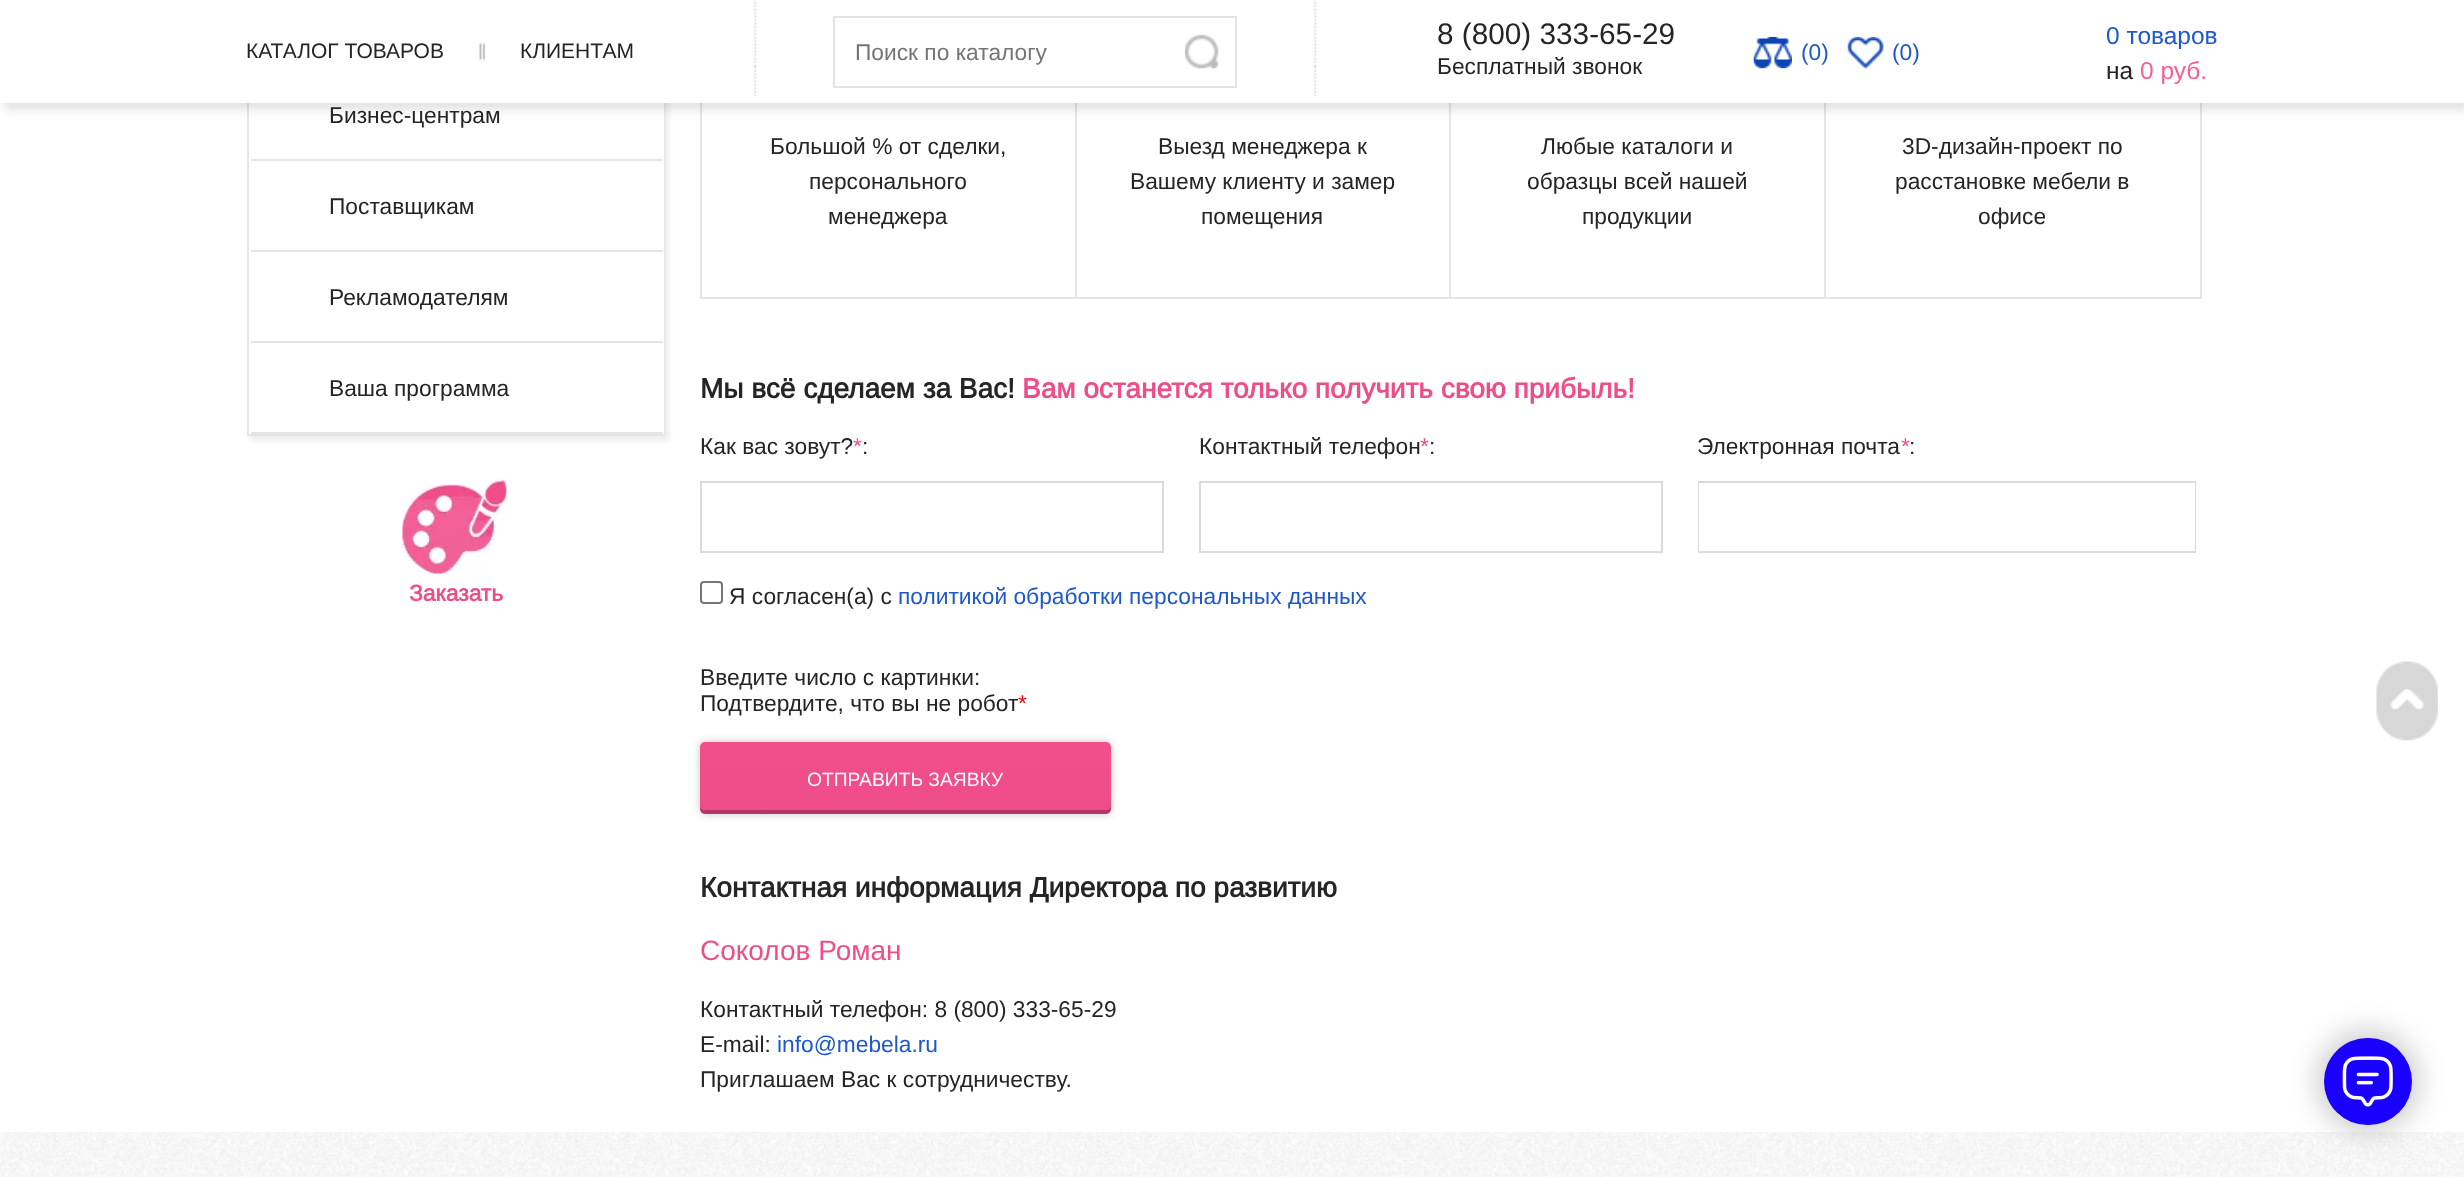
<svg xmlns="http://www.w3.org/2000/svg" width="2464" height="1177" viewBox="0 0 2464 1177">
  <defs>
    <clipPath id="clip1"><path d="M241 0H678V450H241ZM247-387H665V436H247Z" clip-rule="evenodd"/></clipPath>
    <filter id="blur1" x="-50%" y="-200%" width="200%" height="500%"><feGaussianBlur stdDeviation="2.5"/></filter>
    <filter id="blur2" x="-50%" y="-200%" width="200%" height="500%"><feGaussianBlur stdDeviation="4.5"/></filter>
    <linearGradient id="g1" gradientUnits="userSpaceOnUse" x1="906" y1="814" x2="906" y2="742"><stop offset="0" stop-color="#ee4d8a"/><stop offset="1" stop-color="#f24e8c"/></linearGradient>
    <filter id="blur3" x="-50%" y="-200%" width="200%" height="500%"><feGaussianBlur stdDeviation="14"/></filter>
  </defs>
  <rect width="100%" height="100%" fill="#ffffff"/>
  <g clip-path="url(#clip1)">
    <rect x="250" y="-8" width="419" height="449" fill="#000000" fill-opacity="0.07" filter="url(#blur1)"/>
  </g>
  <rect x="248" y="-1" width="416" height="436" fill="none" stroke="#e5e5e5" stroke-width="2"/>
  <rect x="663" y="103" width="1" height="331" fill="#ffffff"/>
  <rect x="701" y="-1" width="1500" height="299" fill="none" stroke="#e5e5e5" stroke-width="2"/>
  <rect x="1075" y="103" width="2" height="195" fill="#e5e5e5"/>
  <rect x="1449" y="103" width="2" height="195" fill="#e5e5e5"/>
  <rect x="1824" y="103" width="2" height="195" fill="#e5e5e5"/>
  <rect x="5" y="7" width="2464" height="103" fill="#000000" fill-opacity="0.11" filter="url(#blur2)"/>
  <rect x="0" y="0" width="2464" height="103" fill="#ffffff"/>
  <text x="246" y="58" font-family="Arimo" font-size="21" fill="#252525">КАТАЛОГ ТОВАРОВ</text>
  <image x="478" y="43" width="7" height="18" href="img1.png"/>
  <text x="520" y="58" font-family="Arimo" font-size="21" fill="#252525">КЛИЕНТАМ</text>
  <rect x="834" y="17" width="402" height="70" fill="none" stroke="#e3e3e3" stroke-width="2"/>
  <image x="753" y="0" width="4" height="96" href="img2.png"/>
  <text x="855" y="60" font-family="Arimo" font-size="22.75" fill="#757575">Поиск по каталогу</text>
  <image x="1185" y="34" width="34" height="35" href="img3.png"/>
  <image x="1313" y="0" width="4" height="96" href="img2.png"/>
  <text x="1437" y="44" font-family="Arimo" font-size="29.75" fill="#252525">8 (800) 333-65-29</text>
  <text x="1437" y="74" font-family="Arimo" font-size="22.75" fill="#252525">Бесплатный звонок</text>
  <image x="1753" y="36" width="39" height="33" href="img4.png"/>
  <text x="1801" y="60" font-family="Arimo" font-size="22.75" fill="#1d58cc">(0)</text>
  <image x="1847" y="36" width="37" height="33" href="img5.png"/>
  <text x="1892" y="60" font-family="Arimo" font-size="22.75" fill="#1d58cc">(0)</text>
  <text x="2106" y="44" font-family="Arimo" font-size="24.5" fill="#1d58cc">0 товаров</text>
  <text x="2106" y="79" font-family="Arimo" font-size="24.5" fill="#252525">на</text>
  <text x="2140" y="79" font-family="Arimo" font-size="24.5" fill="#f65e98">0 руб.</text>
  <rect x="249" y="159" width="414" height="2" fill="#e5e5e5"/>
  <rect x="249" y="159" width="2" height="2" fill="#ffffff"/>
  <text x="329" y="123" font-family="Arimo" font-size="22.75" fill="#252525">Бизнес-центрам</text>
  <rect x="249" y="250" width="414" height="2" fill="#e5e5e5"/>
  <rect x="249" y="250" width="2" height="2" fill="#ffffff"/>
  <text x="329" y="214" font-family="Arimo" font-size="22.75" fill="#252525">Поставщикам</text>
  <rect x="249" y="341" width="414" height="2" fill="#e5e5e5"/>
  <rect x="249" y="341" width="2" height="2" fill="#ffffff"/>
  <text x="329" y="305" font-family="Arimo" font-size="22.75" fill="#252525">Рекламодателям</text>
  <rect x="249" y="432" width="414" height="2" fill="#e5e5e5"/>
  <rect x="249" y="432" width="2" height="2" fill="#ffffff"/>
  <text x="329" y="396" font-family="Arimo" font-size="22.75" fill="#252525">Ваша программа</text>
  <image x="402" y="479" width="106" height="95" href="img6.png"/>
  <text x="409" y="601" font-family="Arimo" font-size="22.75" font-weight="bold" fill="#ee4d8a">Заказать</text>
  <text x="770" y="154" font-family="Arimo" font-size="22.75" fill="#252525">Большой % от сделки,</text>
  <text x="809" y="189" font-family="Arimo" font-size="22.75" fill="#252525">персонального</text>
  <text x="828" y="224" font-family="Arimo" font-size="22.75" fill="#252525">менеджера</text>
  <text x="1158" y="154" font-family="Arimo" font-size="22.75" fill="#252525">Выезд менеджера к</text>
  <text x="1130" y="189" font-family="Arimo" font-size="22.75" fill="#252525">Вашему клиенту и замер</text>
  <text x="1201" y="224" font-family="Arimo" font-size="22.75" fill="#252525">помещения</text>
  <text x="1541" y="154" font-family="Arimo" font-size="22.75" fill="#252525">Любые каталоги и</text>
  <text x="1527" y="189" font-family="Arimo" font-size="22.75" fill="#252525">образцы всей нашей</text>
  <text x="1582" y="224" font-family="Arimo" font-size="22.75" fill="#252525">продукции</text>
  <text x="1902" y="154" font-family="Arimo" font-size="22.75" fill="#252525">3D-дизайн-проект по</text>
  <text x="1895" y="189" font-family="Arimo" font-size="22.75" fill="#252525">расстановке мебели в</text>
  <text x="1978" y="224" font-family="Arimo" font-size="22.75" fill="#252525">офисе</text>
  <text x="700" y="398" font-family="Arimo" font-size="28" font-weight="bold" fill="#252525">Мы всё сделаем за Вас!</text>
  <text x="1022" y="398" font-family="Arimo" font-size="28" font-weight="bold" fill="#ee4d8a">Вам останется только получить свою прибыль!</text>
  <text x="700" y="454" font-family="Arimo" font-size="22.75" fill="#252525">Как вас зовут?</text>
  <text x="853" y="454" font-family="Arimo" font-size="22.75" fill="#ee4d8a">*</text>
  <text x="862" y="454" font-family="Arimo" font-size="22.75" fill="#252525">:</text>
  <rect x="701" y="482" width="462" height="70" fill="none" stroke="#dbdbdb" stroke-width="2"/>
  <text x="1199" y="454" font-family="Arimo" font-size="22.75" fill="#252525">Контактный телефон</text>
  <text x="1420" y="454" font-family="Arimo" font-size="22.75" fill="#ee4d8a">*</text>
  <text x="1429" y="454" font-family="Arimo" font-size="22.75" fill="#252525">:</text>
  <rect x="1200" y="482" width="462" height="70" fill="none" stroke="#dbdbdb" stroke-width="2"/>
  <text x="1697" y="454" font-family="Arimo" font-size="22.75" fill="#252525">Электронная почта</text>
  <text x="1901" y="454" font-family="Arimo" font-size="22.75" fill="#ee4d8a">*</text>
  <text x="1909" y="454" font-family="Arimo" font-size="22.75" fill="#252525">:</text>
  <rect x="1699" y="482" width="496" height="70" fill="none" stroke="#dbdbdb" stroke-width="2"/>
  <rect x="1699" y="483" width="496" height="68" fill="#ffffff"/>
  <rect x="701" y="582" width="21" height="21" rx="3" fill="none" stroke="#767676" stroke-width="2"/>
  <text x="729" y="604" font-family="Arimo" font-size="22.75" fill="#252525">Я согласен(а) с</text>
  <text x="898" y="604" font-family="Arimo" font-size="22.75" fill="#1d58cc">политикой обработки персональных данных</text>
  <text x="700" y="685" font-family="Arimo" font-size="22.75" fill="#252525">Введите число с картинки:</text>
  <text x="700" y="711" font-family="Arimo" font-size="22.75" fill="#252525">Подтвердите, что вы не робот</text>
  <text x="1018" y="711" font-family="Arimo" font-size="22.75" fill="#ff0000">*</text>
  <rect x="700" y="742" width="411" height="72" rx="5" fill="#000000" fill-opacity="0.22" filter="url(#blur2)"/>
  <rect x="700" y="742" width="411" height="72" rx="5" fill="url(#g1)"/>
  <path d="M700 805C700 809 700 814 705 814H1106C1111 814 1111 809 1111 805C1111 808 1109 810 1106 810H705C702 810 700 808 700 805Z" fill="#000000" fill-opacity="0.25"/>
  <text x="807" y="786" font-family="Arimo" font-size="19.25" fill="#ffffff">ОТПРАВИТЬ ЗАЯВКУ</text>
  <text x="700" y="897" font-family="Arimo" font-size="28" font-weight="bold" fill="#252525">Контактная информация Директора по развитию</text>
  <text x="700" y="960" font-family="Arimo" font-size="28" fill="#ee4d8a">Соколов Роман</text>
  <text x="700" y="1017" font-family="Arimo" font-size="22.75" fill="#252525">Контактный телефон: 8 (800) 333-65-29</text>
  <text x="700" y="1052" font-family="Arimo" font-size="22.75" fill="#252525">E-mail:</text>
  <text x="777" y="1052" font-family="Arimo" font-size="22.75" fill="#1d58cc">info@mebela.ru</text>
  <text x="700" y="1087" font-family="Arimo" font-size="22.75" fill="#252525">Приглашаем Вас к сотрудничеству.</text>
  <image x="2376" y="661" width="62" height="80" href="img7.png"/>
  <image x="0" y="1132" width="2464" height="45" href="img9.png"/>
  <rect x="2317" y="1031" width="102" height="101" rx="50.5" fill="#000000" fill-opacity="0.2" filter="url(#blur3)"/>
  <rect x="2324" y="1038" width="88" height="87" rx="43.5" fill="#1900ff"/>
  <image x="2342" y="1056" width="51" height="51" href="img8.png"/>
</svg>
